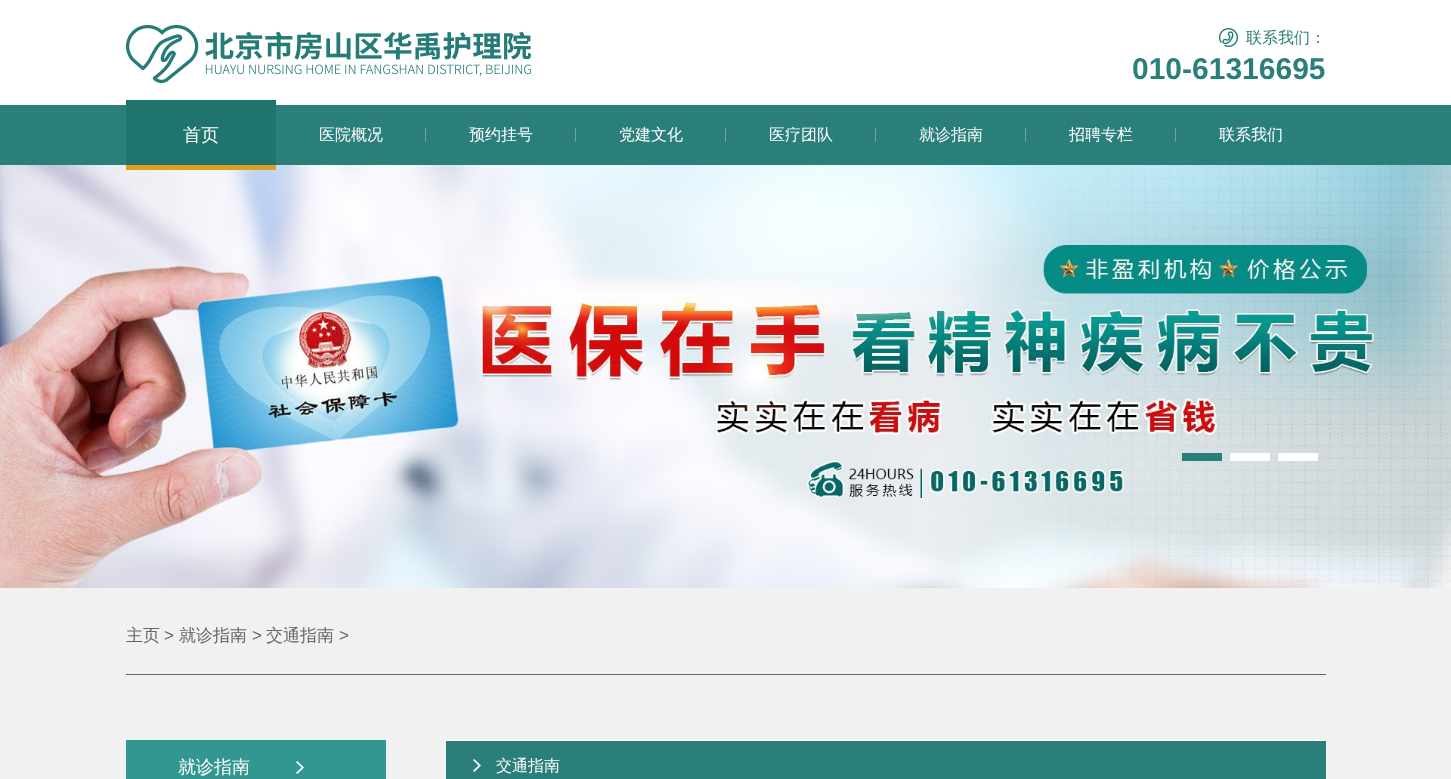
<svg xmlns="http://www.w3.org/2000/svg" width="1451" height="779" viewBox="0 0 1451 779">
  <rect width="100%" height="100%" fill="#f1f1f1"/>
  <rect x="0" y="0" width="1451" height="105" fill="#ffffff"/>
  <image x="126" y="25" width="405" height="58" href="img1.png"/>
  <image x="1219" y="28" width="19" height="19" href="img2.png"/>
  <text x="1246" y="43" font-family="WenQuanYi Zen Hei" font-size="16" font-weight="500" fill="#2a7f7a">联系我们：</text>
  <text x="1132" y="79" font-family="Liberation Sans" font-size="30" font-weight="bold" fill="#2a7f7a">010-61316695</text>
  <rect x="0" y="105" width="1451" height="60" fill="#2a7f7a"/>
  <image x="0" y="165" width="1451" height="423" href="img4.png"/>
  <image x="126" y="100" width="150" height="70" href="img3.png"/>
  <text x="183" y="141" font-family="WenQuanYi Zen Hei" font-size="18" font-weight="500" fill="#ffffff">首页</text>
  <rect x="425" y="128" width="1" height="14" fill="#6aa7a2"/>
  <text x="319" y="140" font-family="WenQuanYi Zen Hei" font-size="16" font-weight="500" fill="#ffffff">医院概况</text>
  <rect x="575" y="128" width="1" height="14" fill="#6aa7a2"/>
  <text x="469" y="140" font-family="WenQuanYi Zen Hei" font-size="16" font-weight="500" fill="#ffffff">预约挂号</text>
  <rect x="725" y="128" width="1" height="14" fill="#6aa7a2"/>
  <text x="619" y="140" font-family="WenQuanYi Zen Hei" font-size="16" font-weight="500" fill="#ffffff">党建文化</text>
  <rect x="875" y="128" width="1" height="14" fill="#6aa7a2"/>
  <text x="769" y="140" font-family="WenQuanYi Zen Hei" font-size="16" font-weight="500" fill="#ffffff">医疗团队</text>
  <rect x="1025" y="128" width="1" height="14" fill="#6aa7a2"/>
  <text x="919" y="140" font-family="WenQuanYi Zen Hei" font-size="16" font-weight="500" fill="#ffffff">就诊指南</text>
  <rect x="1175" y="128" width="1" height="14" fill="#6aa7a2"/>
  <text x="1069" y="140" font-family="WenQuanYi Zen Hei" font-size="16" font-weight="500" fill="#ffffff">招聘专栏</text>
  <text x="1219" y="140" font-family="WenQuanYi Zen Hei" font-size="16" font-weight="500" fill="#ffffff">联系我们</text>
  <rect x="1182" y="453" width="40" height="8" fill="#2a7f78"/>
  <rect x="1230" y="453" width="40" height="8" fill="#ffffff"/>
  <rect x="1278" y="453" width="40" height="8" fill="#ffffff"/>
  <rect x="126" y="674" width="1200" height="1" fill="#666666"/>
  <text x="126" y="641" font-family="WenQuanYi Zen Hei" font-size="17" font-weight="500" fill="#666666">主页</text>
  <text x="164" y="641" font-family="Liberation Sans" font-size="17" fill="#666666">&gt;</text>
  <text x="179" y="641" font-family="WenQuanYi Zen Hei" font-size="17" font-weight="500" fill="#666666">就诊指南</text>
  <text x="252" y="641" font-family="Liberation Sans" font-size="17" fill="#666666">&gt;</text>
  <text x="266" y="641" font-family="WenQuanYi Zen Hei" font-size="17" font-weight="500" fill="#666666">交通指南</text>
  <text x="339" y="641" font-family="Liberation Sans" font-size="17" fill="#666666">&gt;</text>
  <rect x="126" y="740" width="260" height="39" fill="#339791"/>
  <image x="296" y="761" width="8" height="13" href="img5.png"/>
  <text x="178" y="773" font-family="WenQuanYi Zen Hei" font-size="18" font-weight="500" fill="#ffffff">就诊指南</text>
  <rect x="446" y="740" width="880" height="1" fill="#ffffff"/>
  <rect x="446" y="741" width="880" height="38" fill="#2a7f7a"/>
  <image x="473" y="759" width="8" height="13" href="img6.png"/>
  <text x="496" y="771" font-family="WenQuanYi Zen Hei" font-size="16" font-weight="500" fill="#ffffff">交通指南</text>
</svg>
